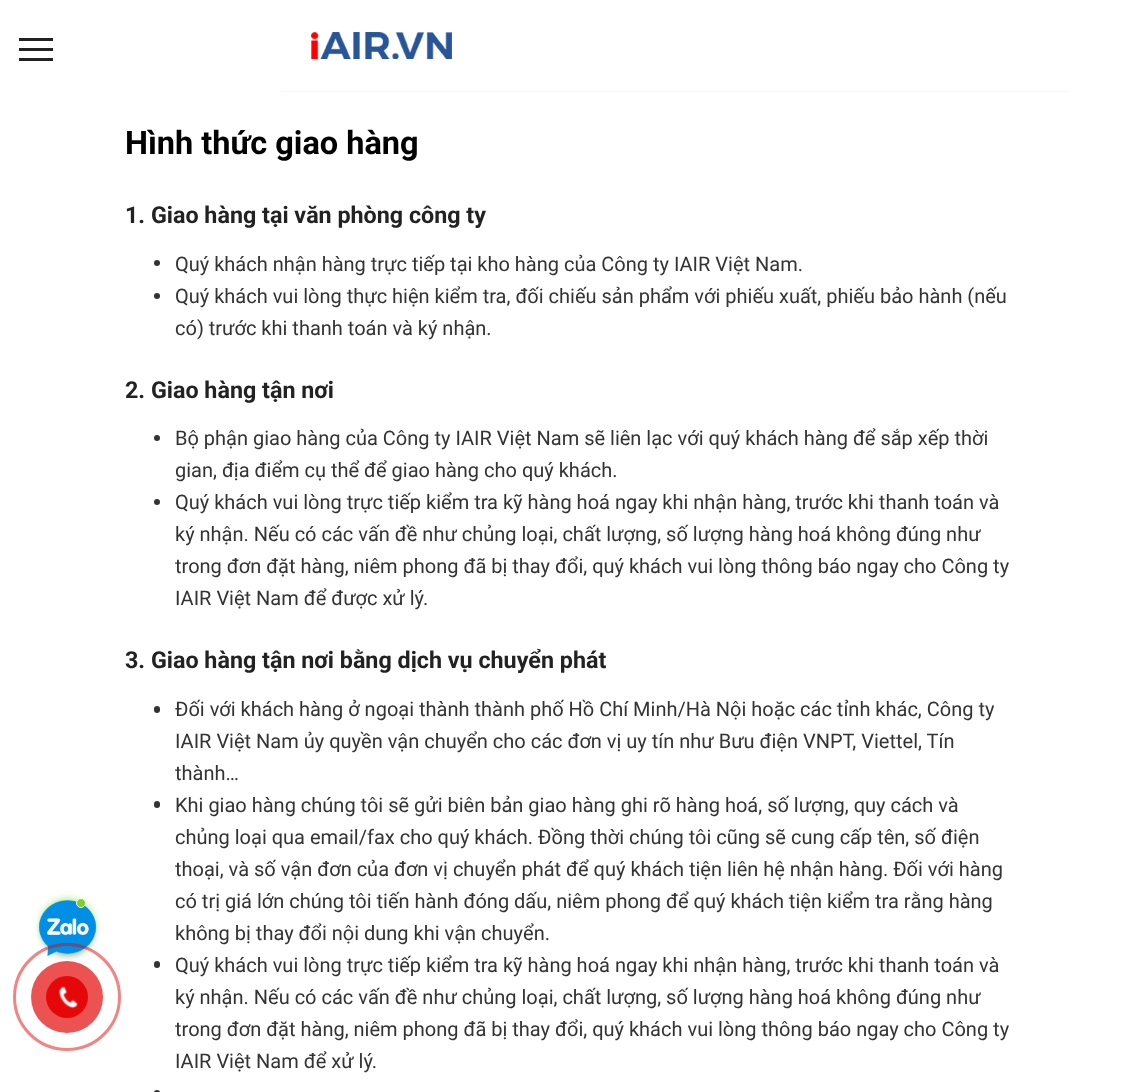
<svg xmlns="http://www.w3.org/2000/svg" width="1124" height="1092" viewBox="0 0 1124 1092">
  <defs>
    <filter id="blur1" x="-50%" y="-200%" width="200%" height="500%"><feGaussianBlur stdDeviation="5"/></filter>
  </defs>
  <rect width="100%" height="100%" fill="#ffffff"/>
  <rect x="43" y="901" width="50" height="50" rx="25" fill="#7ed321" filter="url(#blur1)"/>
  <image x="37" y="900" width="61" height="62" href="img1.png"/>
  <circle cx="81" cy="903" r="4.5" fill="#7ed321" stroke="#ffffff"/>
  <rect x="19" y="48" width="34" height="3" fill="#222222"/>
  <rect x="19" y="38" width="34" height="3" fill="#222222"/>
  <rect x="19" y="58" width="34" height="3" fill="#222222"/>
  <rect x="281" y="91" width="788" height="1" fill="#f7f7f7"/>
  <image x="311" y="32" width="141" height="27" href="img2.png"/>
  <text x="125" y="154" font-family="Roboto" font-size="32.5" font-weight="bold" fill="#000000">Hình thức giao hàng</text>
  <text x="125" y="223" font-family="Roboto" font-size="23.3" font-weight="bold" fill="#222222">1. Giao hàng tại văn phòng công ty</text>
  <circle cx="157" cy="263" r="3" fill="#333333"/>
  <text x="175" y="271" font-family="Roboto" font-size="20" fill="#333333">Quý khách nhận hàng trực tiếp tại kho hàng của Công ty IAIR Việt Nam.</text>
  <circle cx="157" cy="296" r="3" fill="#333333"/>
  <text x="175" y="303" font-family="Roboto" font-size="20" fill="#333333">Quý khách vui lòng thực hiện kiểm tra, đối chiếu sản phẩm với phiếu xuất, phiếu bảo hành (nếu</text>
  <text x="175" y="335" font-family="Roboto" font-size="20" fill="#333333">có) trước khi thanh toán và ký nhận.</text>
  <text x="125" y="398" font-family="Roboto" font-size="23.3" font-weight="bold" fill="#222222">2. Giao hàng tận nơi</text>
  <circle cx="157" cy="438" r="3" fill="#333333"/>
  <text x="175" y="445" font-family="Roboto" font-size="20" fill="#333333">Bộ phận giao hàng của Công ty IAIR Việt Nam sẽ liên lạc với quý khách hàng để sắp xếp thời</text>
  <text x="175" y="477" font-family="Roboto" font-size="20" fill="#333333">gian, địa điểm cụ thể để giao hàng cho quý khách.</text>
  <circle cx="157" cy="502" r="3" fill="#333333"/>
  <text x="175" y="509" font-family="Roboto" font-size="20" fill="#333333">Quý khách vui lòng trực tiếp kiểm tra kỹ hàng hoá ngay khi nhận hàng, trước khi thanh toán và</text>
  <text x="175" y="541" font-family="Roboto" font-size="20" fill="#333333">ký nhận. Nếu có các vấn đề như chủng loại, chất lượng, số lượng hàng hoá không đúng như</text>
  <text x="175" y="573" font-family="Roboto" font-size="20" fill="#333333">trong đơn đặt hàng, niêm phong đã bị thay đổi, quý khách vui lòng thông báo ngay cho Công ty</text>
  <text x="175" y="605" font-family="Roboto" font-size="20" fill="#333333">IAIR Việt Nam để được xử lý.</text>
  <text x="125" y="668" font-family="Roboto" font-size="23.3" font-weight="bold" fill="#222222">3. Giao hàng tận nơi bằng dịch vụ chuyển phát</text>
  <rect x="154" y="706" width="6" height="7" rx="3" fill="#333333"/>
  <text x="175" y="716" font-family="Roboto" font-size="20" fill="#333333">Đối với khách hàng ở ngoại thành thành phố Hồ Chí Minh/Hà Nội hoặc các tỉnh khác, Công ty</text>
  <text x="175" y="748" font-family="Roboto" font-size="20" fill="#333333">IAIR Việt Nam ủy quyền vận chuyển cho các đơn vị uy tín như Bưu điện VNPT, Viettel, Tín</text>
  <text x="175" y="780" font-family="Roboto" font-size="20" fill="#333333">thành…</text>
  <rect x="154" y="801" width="6" height="7" rx="3" fill="#333333"/>
  <text x="175" y="812" font-family="Roboto" font-size="20" fill="#333333">Khi giao hàng chúng tôi sẽ gửi biên bản giao hàng ghi rõ hàng hoá, số lượng, quy cách và</text>
  <text x="175" y="844" font-family="Roboto" font-size="20" fill="#333333">chủng loại qua email/fax cho quý khách. Đồng thời chúng tôi cũng sẽ cung cấp tên, số điện</text>
  <text x="175" y="876" font-family="Roboto" font-size="20" fill="#333333">thoại, và số vận đơn của đơn vị chuyển phát để quý khách tiện liên hệ nhận hàng. Đối với hàng</text>
  <text x="175" y="908" font-family="Roboto" font-size="20" fill="#333333">có trị giá lớn chúng tôi tiến hành đóng dấu, niêm phong để quý khách tiện kiểm tra rằng hàng</text>
  <text x="175" y="940" font-family="Roboto" font-size="20" fill="#333333">không bị thay đổi nội dung khi vận chuyển.</text>
  <rect x="154" y="961" width="6" height="7" rx="3" fill="#333333"/>
  <text x="175" y="972" font-family="Roboto" font-size="20" fill="#333333">Quý khách vui lòng trực tiếp kiểm tra kỹ hàng hoá ngay khi nhận hàng, trước khi thanh toán và</text>
  <text x="175" y="1004" font-family="Roboto" font-size="20" fill="#333333">ký nhận. Nếu có các vấn đề như chủng loại, chất lượng, số lượng hàng hoá không đúng như</text>
  <text x="175" y="1036" font-family="Roboto" font-size="20" fill="#333333">trong đơn đặt hàng, niêm phong đã bị thay đổi, quý khách vui lòng thông báo ngay cho Công ty</text>
  <text x="175" y="1068" font-family="Roboto" font-size="20" fill="#333333">IAIR Việt Nam để xử lý.</text>
  <rect x="154" y="1090" width="6" height="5" rx="3" fill="#333333"/>
  <circle cx="67" cy="997" r="52.5" fill="none" stroke="#e60808" stroke-opacity="0.5" stroke-width="3"/>
  <circle cx="67" cy="997" r="36" fill="#e60808" fill-opacity="0.7"/>
  <circle cx="67" cy="997" r="21" fill="#e60808"/>
  <image x="58" y="986" width="20" height="23" href="img3.png"/>
</svg>
